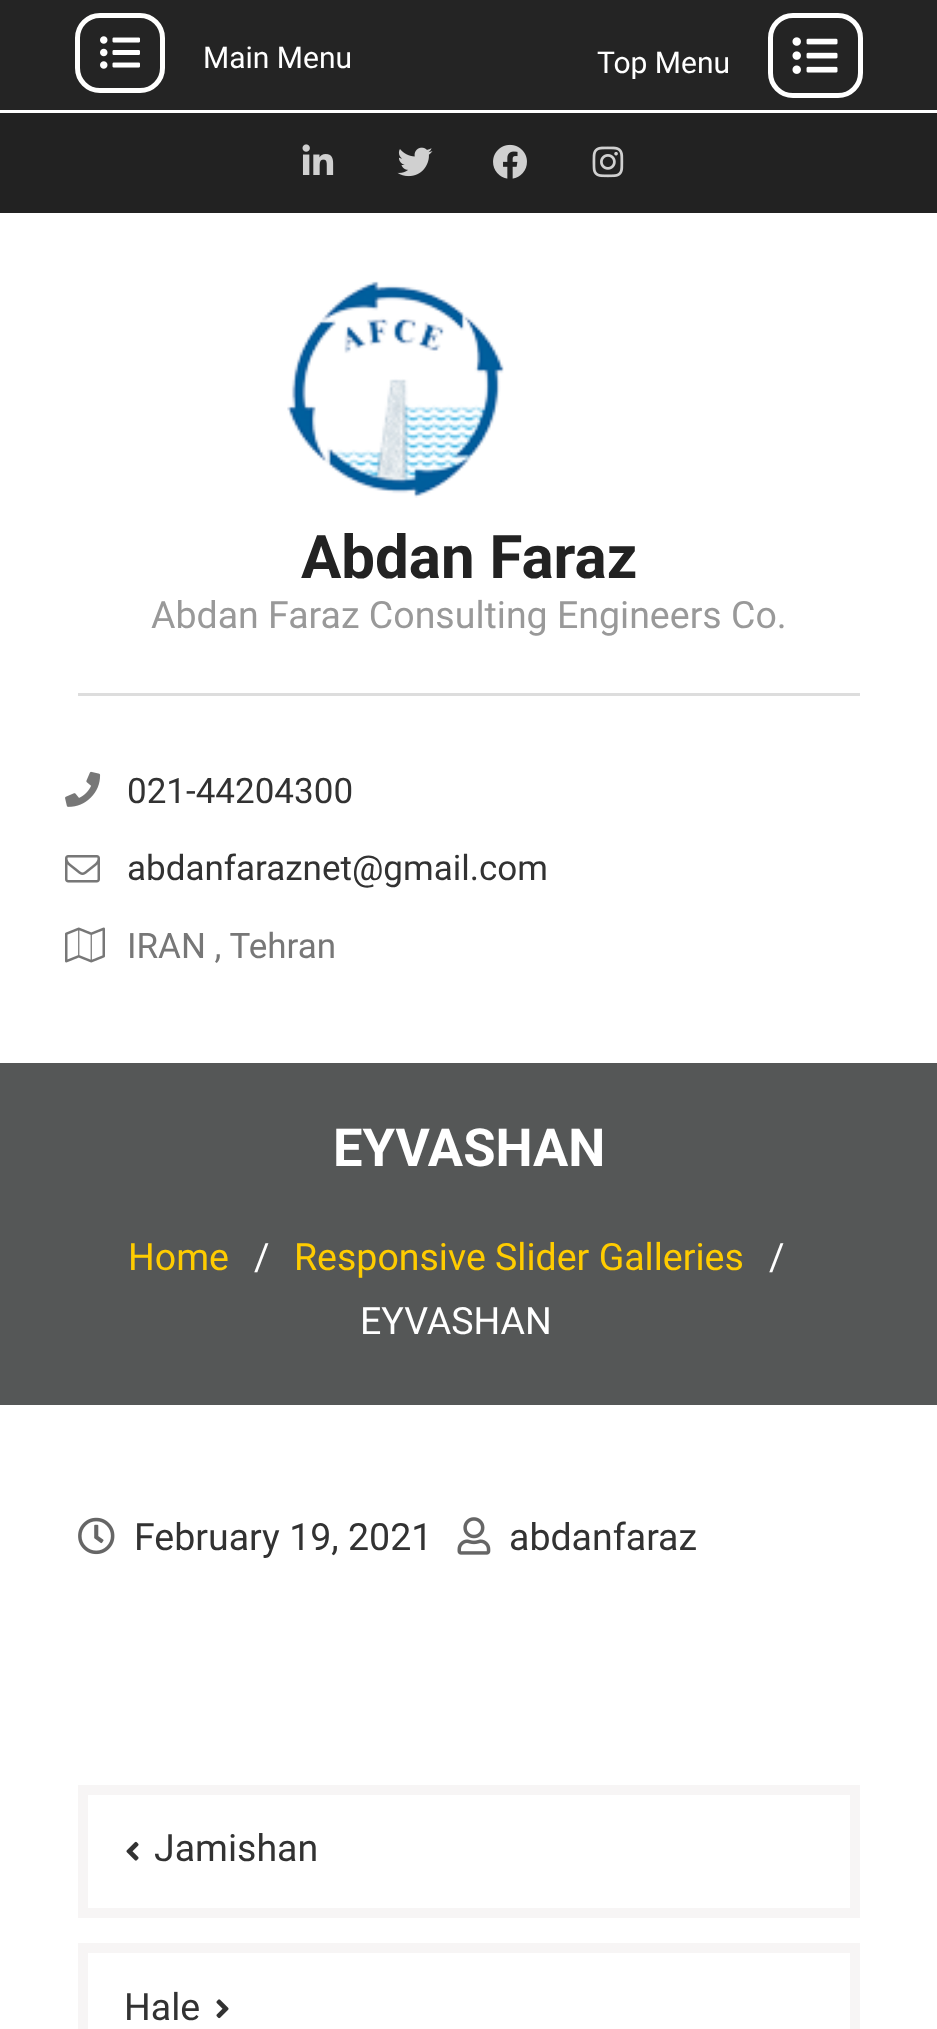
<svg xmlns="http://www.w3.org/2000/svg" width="937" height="2029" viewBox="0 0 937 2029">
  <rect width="100%" height="100%" fill="#ffffff"/>
  <rect x="0" y="0" width="937" height="110" fill="#242424"/>
  <rect x="77.5" y="15.5" width="85" height="75" rx="22.5" fill="none" stroke="#fffffe" stroke-width="5"/>
  <image x="100" y="36" width="40" height="33" href="img1.png"/>
  <text x="203" y="68" font-family="Roboto" font-size="30" fill="#ffffff">Main Menu</text>
  <text x="597" y="73" font-family="Roboto" font-size="30" fill="#ffffff">Top Menu</text>
  <rect x="770.5" y="15.5" width="90" height="80" rx="22.5" fill="none" stroke="#ffffff" stroke-width="5"/>
  <image x="792" y="37" width="46" height="37" href="img2.png"/>
  <rect x="0" y="113" width="937" height="100" fill="#222222"/>
  <image x="302" y="144" width="32" height="31" href="img3.png"/>
  <image x="397" y="147" width="36" height="30" href="img4.png"/>
  <image x="493" y="144" width="34" height="35" href="img5.png"/>
  <image x="592" y="146" width="32" height="32" href="img6.png"/>
  <image x="287" y="281" width="217" height="217" href="img7.png"/>
  <text x="301" y="578" font-family="Roboto" font-size="60" font-weight="bold" fill="#222222">Abdan Faraz</text>
  <text x="151" y="628" font-family="Roboto" font-size="37.5" fill="#999999">Abdan Faraz Consulting Engineers Co.</text>
  <rect x="78" y="693" width="782" height="3" fill="#dddddd"/>
  <image x="65" y="771" width="36" height="36" href="img8.png"/>
  <text x="127" y="803" font-family="Roboto" font-size="35" fill="#323232">021-44204300</text>
  <image x="65" y="855" width="35" height="28" href="img9.png"/>
  <text x="127" y="880" font-family="Roboto" font-size="35" fill="#323232">abdanfaraznet@gmail.com</text>
  <image x="65" y="927" width="40" height="36" href="img10.png"/>
  <text x="127" y="958" font-family="Roboto" font-size="35" fill="#777777">IRAN , Tehran</text>
  <rect x="0" y="1063" width="937" height="342" fill="#555757"/>
  <text x="333" y="1166" font-family="Roboto" font-size="52.5" font-weight="bold" fill="#ffffff">EYVASHAN</text>
  <text x="128" y="1270" font-family="Roboto" font-size="37.5" fill="#ffcc00">Home</text>
  <text x="254" y="1270" font-family="Roboto" font-size="37.5" fill="#ffffff">/</text>
  <text x="294" y="1270" font-family="Roboto" font-size="37.5" fill="#ffcc00">Responsive Slider Galleries</text>
  <text x="769" y="1270" font-family="Roboto" font-size="37.5" fill="#ffffff">/</text>
  <text x="360" y="1334" font-family="Roboto" font-size="37.5" fill="#ffffff">EYVASHAN</text>
  <image x="78" y="1517" width="37" height="38" href="img11.png"/>
  <text x="134" y="1550" font-family="Roboto" font-size="37.5" fill="#323232">February 19, 2021</text>
  <image x="457" y="1517" width="34" height="38" href="img12.png"/>
  <text x="509" y="1550" font-family="Roboto" font-size="37.5" fill="#323232">abdanfaraz</text>
  <rect x="83" y="1790" width="772" height="123" fill="none" stroke="#f7f5f5" stroke-width="10"/>
  <image x="126" y="1841" width="13" height="20" href="img13.png"/>
  <text x="154" y="1861" font-family="Roboto" font-size="37.5" fill="#323232">Jamishan</text>
  <rect x="83" y="1948" width="772" height="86" fill="none" stroke="#f7f5f5" stroke-width="10"/>
  <text x="124" y="2020" font-family="Roboto" font-size="37.5" fill="#323232">Hale</text>
  <image x="216" y="1999" width="13" height="20" href="img14.png"/>
</svg>
